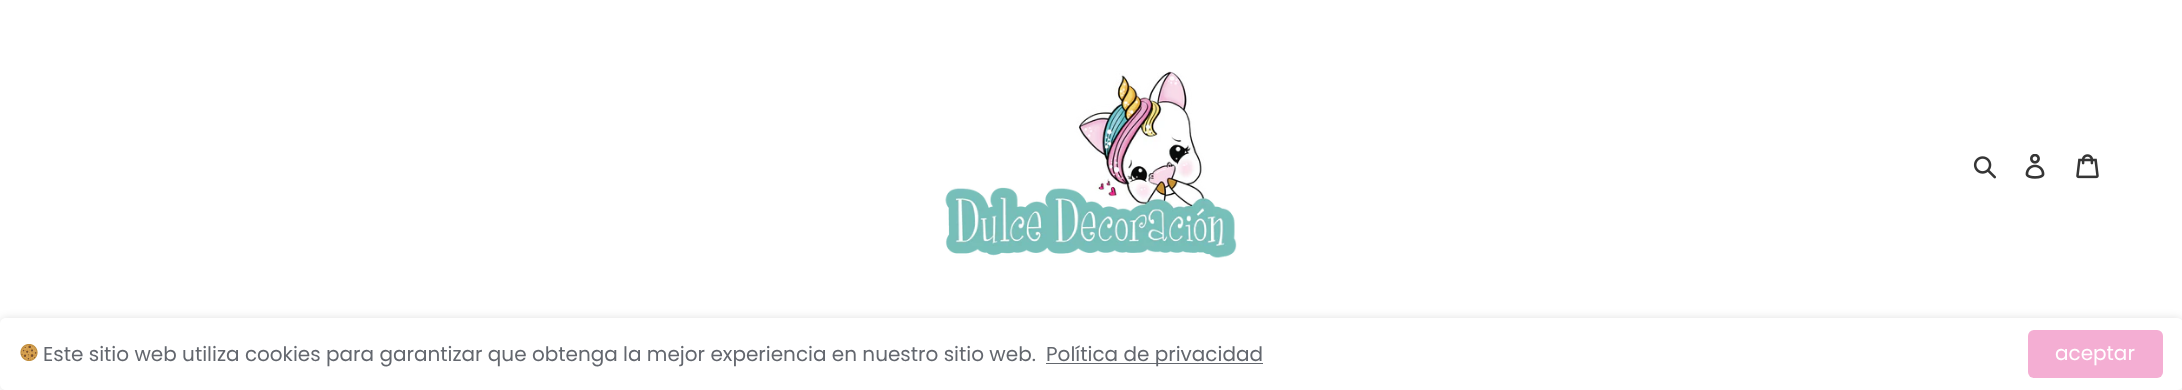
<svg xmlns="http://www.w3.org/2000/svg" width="2182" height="390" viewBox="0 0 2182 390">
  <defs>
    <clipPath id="clip1"><path d="M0 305H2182V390H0ZM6 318H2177C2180.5 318 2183 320.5 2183 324V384C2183 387.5 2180.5 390 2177 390H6C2.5 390 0 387.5 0 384V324C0 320.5 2.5 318 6 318Z" clip-rule="evenodd"/></clipPath>
    <filter id="blur1" x="-50%" y="-200%" width="200%" height="500%"><feGaussianBlur stdDeviation="4"/></filter>
  </defs>
  <rect width="100%" height="100%" fill="#ffffff"/>
  <image x="945" y="71" width="292" height="187" href="img1.png"/>
  <image x="1973" y="156" width="23" height="23" href="img2.png"/>
  <image x="2025" y="154" width="20" height="25" href="img3.png"/>
  <image x="2076" y="154" width="23" height="25" href="img4.png"/>
  <g clip-path="url(#clip1)">
    <rect x="0" y="318" width="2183" height="72" rx="6" fill="#000000" fill-opacity="0.12" filter="url(#blur1)"/>
  </g>
  <image x="20" y="344" width="18" height="17" href="img5.png"/>
  <text x="43" y="361" font-family="Poppins" font-size="20" fill="#63676e">Este sitio web utiliza cookies para garantizar que obtenga la mejor experiencia en nuestro sitio web.</text>
  <rect x="1046" y="363" width="217" height="1" fill="#63676e"/>
  <text x="1046" y="361" font-family="Poppins" font-size="20" fill="#63676e">Política de privacidad</text>
  <rect x="2028" y="330" width="135" height="48" rx="6" fill="#f4aed3"/>
  <text x="2055" y="360" font-family="Poppins" font-size="20" fill="#ffffff">aceptar</text>
</svg>
